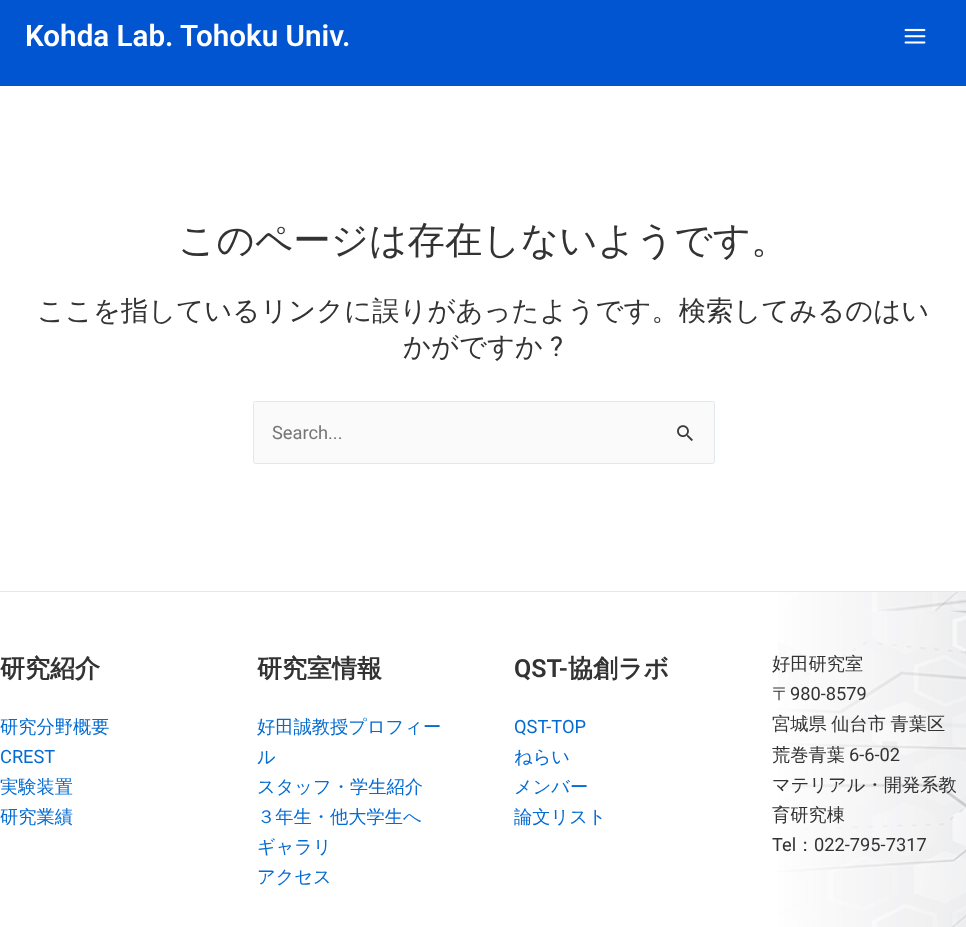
<svg xmlns="http://www.w3.org/2000/svg" width="966" height="927" viewBox="0 0 966 927">
  <rect width="100%" height="100%" fill="#ffffff"/>
  <rect x="0" y="0" width="966" height="86" fill="#0155d1"/>
  <text x="25" y="46" font-family="Roboto" font-size="29.6" font-weight="600" fill="#ffffff">Kohda Lab. Tohoku Univ.</text>
  <image x="904" y="28" width="22" height="16" href="img1.png"/>
  <text x="178" y="253" font-family="WenQuanYi Zen Hei" font-size="37.5" font-weight="500" fill="#333333">このページは存在しないようです。</text>
  <text x="37" y="320" font-family="WenQuanYi Zen Hei" font-size="27.35" font-weight="500" fill="#333333">ここを指しているリンクに誤りがあったようです。検索してみるのはい</text>
  <text x="403" y="356" font-family="WenQuanYi Zen Hei" font-size="27.35" font-weight="500" fill="#333333">かがですか</text>
  <text x="550" y="356" font-family="Roboto" font-size="27.35" fill="#333333">?</text>
  <rect x="253.5" y="401.5" width="461" height="62" rx="2" fill="#fafafa" stroke="#e2e8f0"/>
  <text x="272" y="439" font-family="Roboto" font-size="18.25" fill="#757575">Search...</text>
  <image x="677" y="425" width="16" height="17" href="img2.png"/>
  <image x="778" y="592" width="188" height="335" href="img3.png"/>
  <rect x="0" y="591" width="966" height="1" fill="#e6e6e6"/>
  <text x="0" y="677" font-family="WenQuanYi Zen Hei" font-size="25" font-weight="bold" fill="#333333">研究紹介</text>
  <text x="0" y="733" font-family="WenQuanYi Zen Hei" font-size="18.25" font-weight="500" fill="#046bd2">研究分野概要</text>
  <text x="0" y="763" font-family="Roboto" font-size="18.25" fill="#046bd2">CREST</text>
  <text x="0" y="793" font-family="WenQuanYi Zen Hei" font-size="18.25" font-weight="500" fill="#046bd2">実験装置</text>
  <text x="0" y="823" font-family="WenQuanYi Zen Hei" font-size="18.25" font-weight="500" fill="#046bd2">研究業績</text>
  <text x="257" y="677" font-family="WenQuanYi Zen Hei" font-size="25" font-weight="bold" fill="#333333">研究室情報</text>
  <text x="257" y="733" font-family="WenQuanYi Zen Hei" font-size="18.25" font-weight="500" fill="#046bd2">好田誠教授プロフィー</text>
  <text x="257" y="763" font-family="WenQuanYi Zen Hei" font-size="18.25" font-weight="500" fill="#046bd2">ル</text>
  <text x="257" y="793" font-family="WenQuanYi Zen Hei" font-size="18.25" font-weight="500" fill="#046bd2">スタッフ・学生紹介</text>
  <text x="257" y="823" font-family="WenQuanYi Zen Hei" font-size="18.25" font-weight="500" fill="#046bd2">３年生・他大学生へ</text>
  <text x="257" y="853" font-family="WenQuanYi Zen Hei" font-size="18.25" font-weight="500" fill="#046bd2">ギャラリ</text>
  <text x="257" y="883" font-family="WenQuanYi Zen Hei" font-size="18.25" font-weight="500" fill="#046bd2">アクセス</text>
  <text x="514" y="677" font-family="Roboto" font-size="25" font-weight="600" fill="#333333">QST-</text>
  <text x="568" y="677" font-family="WenQuanYi Zen Hei" font-size="25" font-weight="bold" fill="#333333">協創ラボ</text>
  <text x="514" y="733" font-family="Roboto" font-size="18.25" fill="#046bd2">QST-TOP</text>
  <text x="514" y="763" font-family="WenQuanYi Zen Hei" font-size="18.25" font-weight="500" fill="#046bd2">ねらい</text>
  <text x="514" y="793" font-family="WenQuanYi Zen Hei" font-size="18.25" font-weight="500" fill="#046bd2">メンバー</text>
  <text x="514" y="823" font-family="WenQuanYi Zen Hei" font-size="18.25" font-weight="500" fill="#046bd2">論文リスト</text>
  <text x="772" y="670" font-family="WenQuanYi Zen Hei" font-size="18.25" font-weight="500" fill="#333333">好田研究室</text>
  <text x="772" y="700" font-family="WenQuanYi Zen Hei" font-size="18.25" font-weight="500" fill="#333333">〒</text>
  <text x="790" y="700" font-family="Roboto" font-size="18.25" fill="#333333">980-8579</text>
  <text x="772" y="730" word-spacing="-1" font-family="WenQuanYi Zen Hei" font-size="18.25" font-weight="500" fill="#333333">宮城県 仙台市 青葉区</text>
  <text x="772" y="761" font-family="WenQuanYi Zen Hei" font-size="18.25" font-weight="500" fill="#333333">荒巻青葉</text>
  <text x="849" y="761" font-family="Roboto" font-size="18.25" fill="#333333">6-6-02</text>
  <text x="772" y="791" font-family="WenQuanYi Zen Hei" font-size="18.25" font-weight="500" fill="#333333">マテリアル・開発系教</text>
  <text x="772" y="821" font-family="WenQuanYi Zen Hei" font-size="18.25" font-weight="500" fill="#333333">育研究棟</text>
  <text x="772" y="851" font-family="Roboto" font-size="18.25" fill="#333333">Tel</text>
  <text x="796" y="851" font-family="WenQuanYi Zen Hei" font-size="18.25" font-weight="500" fill="#333333">：</text>
  <text x="814" y="851" font-family="Roboto" font-size="18.25" fill="#333333">022-795-7317</text>
</svg>
